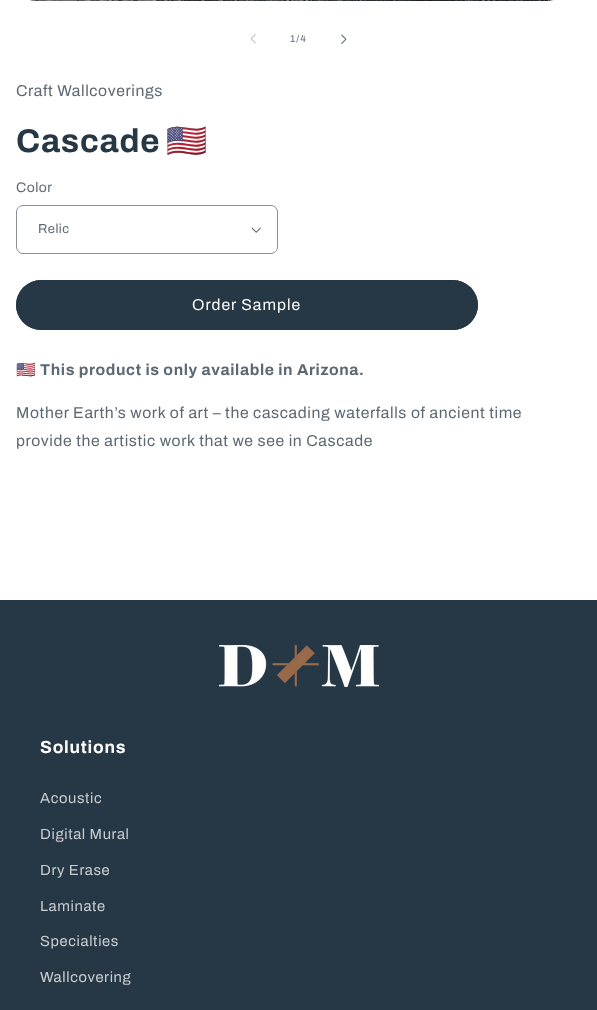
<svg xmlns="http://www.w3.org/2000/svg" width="597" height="1010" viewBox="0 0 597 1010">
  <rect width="100%" height="100%" fill="#ffffff"/>
  <image x="30" y="0" width="523" height="1" href="img1.png"/>
  <image x="250" y="34" width="6" height="10" href="img2.png"/>
  <text x="290" y="42" font-family="Archivo" font-size="10" letter-spacing="1" fill="#5c6974">1/4</text>
  <image x="341" y="34" width="6" height="10" href="img3.png"/>
  <text x="16" y="96" font-family="Archivo" font-size="15.75" letter-spacing="0.63" fill="#5c6974">Craft Wallcoverings</text>
  <text x="16" y="152" font-family="Archivo" font-size="33" font-weight="bold" letter-spacing="0.75" fill="#263746">Cascade</text>
  <text x="166" y="152" font-family="Noto Color Emoji" font-size="33" font-weight="bold" letter-spacing="0.75" fill="#263746">🇺🇸</text>
  <text x="16" y="192" font-family="Archivo" font-size="14" letter-spacing="0.5" fill="#5c6974">Color</text>
  <image x="251" y="227" width="10" height="6" href="img4.png"/>
  <rect x="16.5" y="205.5" width="261" height="48" rx="6.5" fill="none" stroke="#889199"/>
  <text x="38" y="233" font-family="Archivo" font-size="13" letter-spacing="0.5" fill="#5c6974">Relic</text>
  <rect x="16" y="280" width="462" height="50" rx="25" fill="#263746"/>
  <rect x="16.5" y="280.5" width="461" height="49" rx="24.5" fill="none" stroke="#263746"/>
  <text x="192" y="310" font-family="Archivo" font-size="15.75" letter-spacing="1" fill="#ffffff">Order Sample</text>
  <text x="16" y="375" font-family="Noto Color Emoji" font-size="15.75" font-weight="bold" letter-spacing="0.63" fill="#5c6974">🇺🇸</text>
  <text x="40" y="375" font-family="Archivo" font-size="15.75" font-weight="bold" letter-spacing="0.63" fill="#5c6974">This product is only available in Arizona.</text>
  <text x="16" y="418" font-family="Archivo" font-size="15.75" letter-spacing="0.63" fill="#5c6974">Mother Earth’s work of art – the cascading waterfalls of ancient time</text>
  <text x="16" y="446" font-family="Archivo" font-size="15.75" letter-spacing="0.63" fill="#5c6974">provide the artistic work that we see in Cascade</text>
  <rect x="0" y="600" width="597" height="410" fill="#263746"/>
  <image x="219" y="645" width="160" height="42" href="img5.png"/>
  <text x="40" y="753" font-family="Archivo" font-size="17.5" font-weight="bold" letter-spacing="0.75" fill="#ffffff">Solutions</text>
  <text x="40" y="803" font-family="Archivo" font-size="14.75" letter-spacing="0.63" fill="#c9cdd1">Acoustic</text>
  <text x="40" y="839" font-family="Archivo" font-size="14.75" letter-spacing="0.63" fill="#c9cdd1">Digital Mural</text>
  <text x="40" y="875" font-family="Archivo" font-size="14.75" letter-spacing="0.63" fill="#c9cdd1">Dry Erase</text>
  <text x="40" y="911" font-family="Archivo" font-size="14.75" letter-spacing="0.63" fill="#c9cdd1">Laminate</text>
  <text x="40" y="946" font-family="Archivo" font-size="14.75" letter-spacing="0.63" fill="#c9cdd1">Specialties</text>
  <text x="40" y="982" font-family="Archivo" font-size="14.75" letter-spacing="0.63" fill="#c9cdd1">Wallcovering</text>
</svg>
